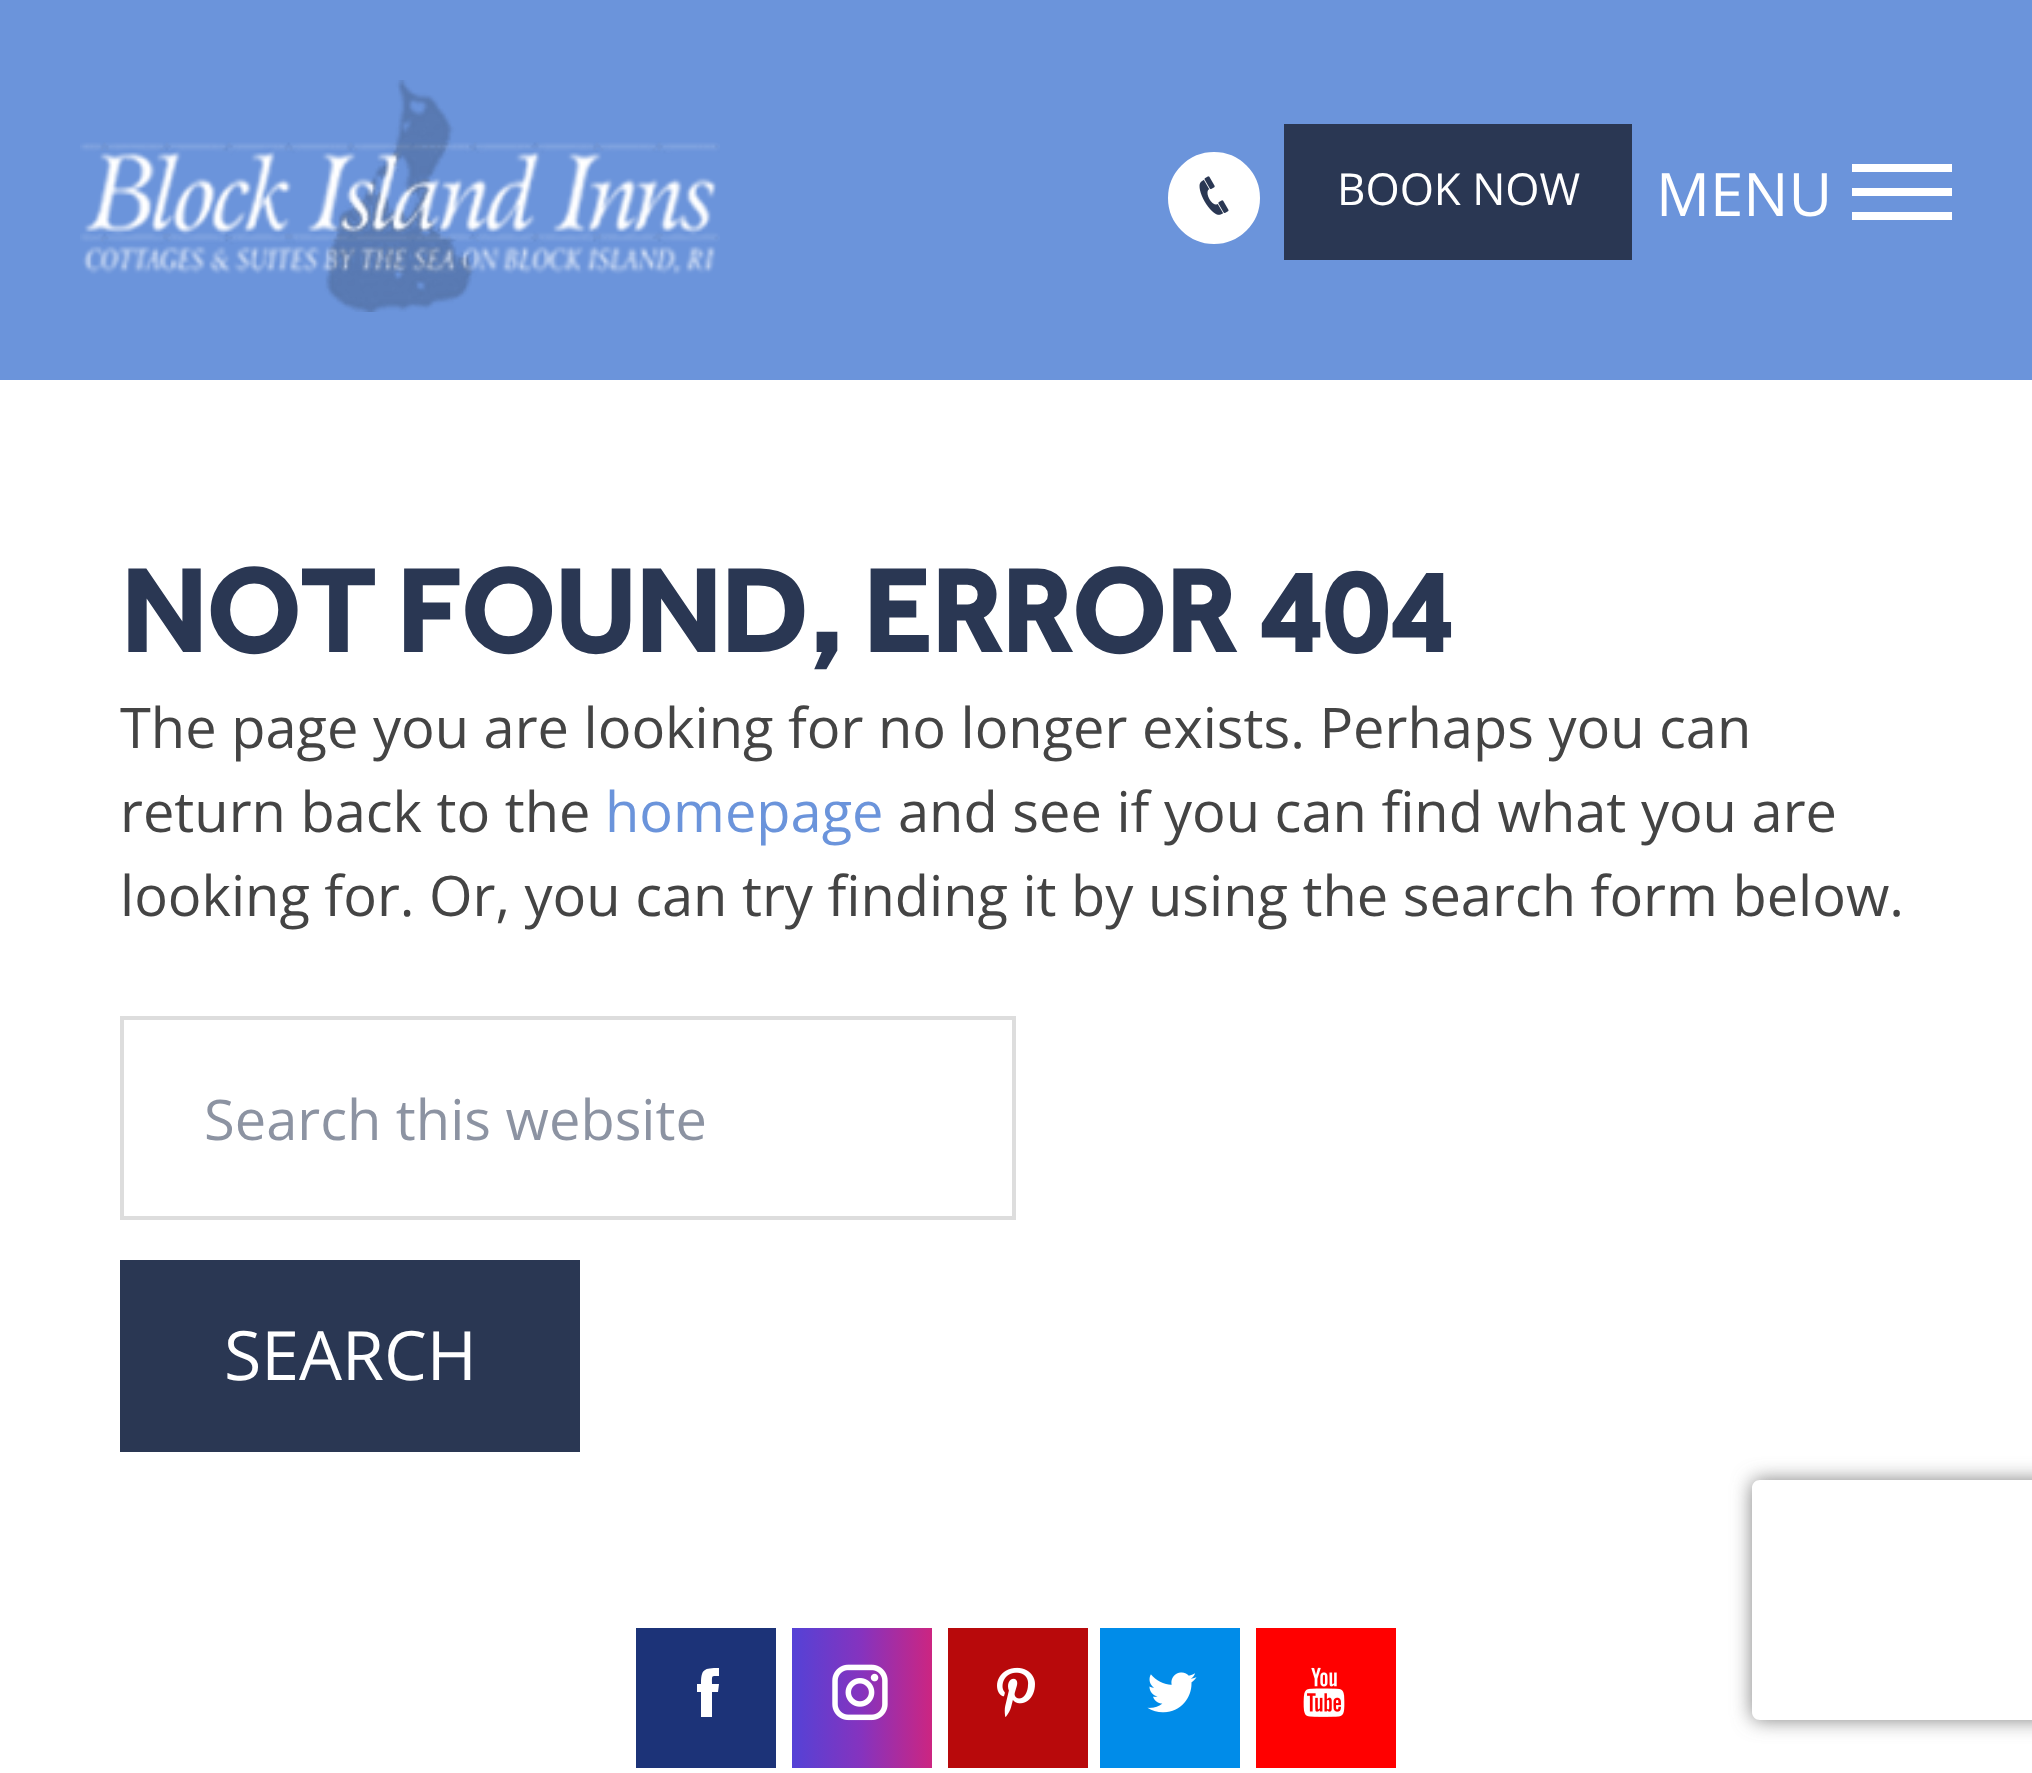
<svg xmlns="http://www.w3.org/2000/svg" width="2032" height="1773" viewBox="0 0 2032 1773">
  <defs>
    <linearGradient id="g1" gradientUnits="userSpaceOnUse" x1="792" y1="1698" x2="932" y2="1698"><stop offset="0" stop-color="#5442d6"/><stop offset="0.5" stop-color="#8633be"/><stop offset="1" stop-color="#cc2581"/></linearGradient>
    <clipPath id="clip1"><path d="M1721 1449H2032V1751H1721ZM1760 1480H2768C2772.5 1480 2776 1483.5 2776 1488V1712C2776 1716.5 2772.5 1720 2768 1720H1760C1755.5 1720 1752 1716.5 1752 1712V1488C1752 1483.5 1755.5 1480 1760 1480Z" clip-rule="evenodd"/></clipPath>
    <filter id="blur1" x="-50%" y="-200%" width="200%" height="500%"><feGaussianBlur stdDeviation="10"/></filter>
  </defs>
  <rect width="100%" height="100%" fill="#ffffff"/>
  <rect x="0" y="0" width="2032" height="380" fill="#6b94db"/>
  <image x="80" y="80" width="640" height="232" href="img1.png"/>
  <circle cx="1214" cy="198" r="44" fill="#ffffff" stroke="#ffffff" stroke-width="4"/>
  <image x="1199" y="176" width="30" height="39" href="img2.png"/>
  <rect x="1284" y="124" width="348" height="136" fill="#2a3753"/>
  <text x="1337" y="205" font-family="Open Sans" font-size="44" fill="#ffffff">BOOK NOW</text>
  <rect x="1852" y="164" width="100" height="8" fill="#ffffff"/>
  <text x="1656" y="216" font-family="Open Sans" font-size="60" fill="#ffffff">MENU</text>
  <rect x="1852" y="188" width="100" height="8" fill="#ffffff"/>
  <rect x="1852" y="212" width="100" height="8" fill="#ffffff"/>
  <text x="120" y="652" font-family="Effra" font-size="120" font-weight="bold" fill="#2a3753">NOT FOUND, ERROR 404</text>
  <text x="120" y="748" font-family="Open Sans" font-size="56" fill="#444444">The page you are looking for no longer exists. Perhaps you can</text>
  <text x="120" y="832" font-family="Open Sans" font-size="56" fill="#444444">return back to the</text>
  <text x="605" y="832" font-family="Open Sans" font-size="56" fill="#6b94db">homepage</text>
  <text x="898" y="832" font-family="Open Sans" font-size="56" fill="#444444">and see if you can find what you are</text>
  <text x="120" y="916" font-family="Open Sans" font-size="56" fill="#444444">looking for. Or, you can try finding it by using the search form below.</text>
  <rect x="122" y="1018" width="892" height="200" fill="none" stroke="#dddddd" stroke-width="4"/>
  <text x="204" y="1140" font-family="Open Sans" font-size="56" fill="#8c93a2">Search this website</text>
  <rect x="120" y="1260" width="460" height="192" fill="#2a3753"/>
  <text x="224" y="1380" font-family="Open Sans" font-size="68" fill="#ffffff">SEARCH</text>
  <rect x="636" y="1628" width="140" height="140" fill="#1c3378"/>
  <path d="M719 1684H712C712 1675 711 1676 719 1676V1668C704 1668 701 1669 701 1684H697V1692H701V1717H712V1692H718Z" fill="#ffffff"/>
  <rect x="792" y="1628" width="140" height="140" fill="url(#g1)"/>
  <image x="832" y="1664" width="56" height="57" href="img3.png"/>
  <rect x="948" y="1628" width="140" height="140" fill="#b8090b"/>
  <image x="997" y="1667" width="38" height="50" href="img4.png"/>
  <rect x="1100" y="1628" width="140" height="140" fill="#008ce9"/>
  <image x="1147" y="1672" width="50" height="41" href="img5.png"/>
  <rect x="1256" y="1628" width="140" height="140" fill="#ff0000"/>
  <image x="1303" y="1667" width="42" height="50" href="img6.png"/>
  <g clip-path="url(#clip1)">
    <rect x="1752" y="1480" width="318" height="240" rx="8" fill="#808080" filter="url(#blur1)"/>
  </g>
</svg>
